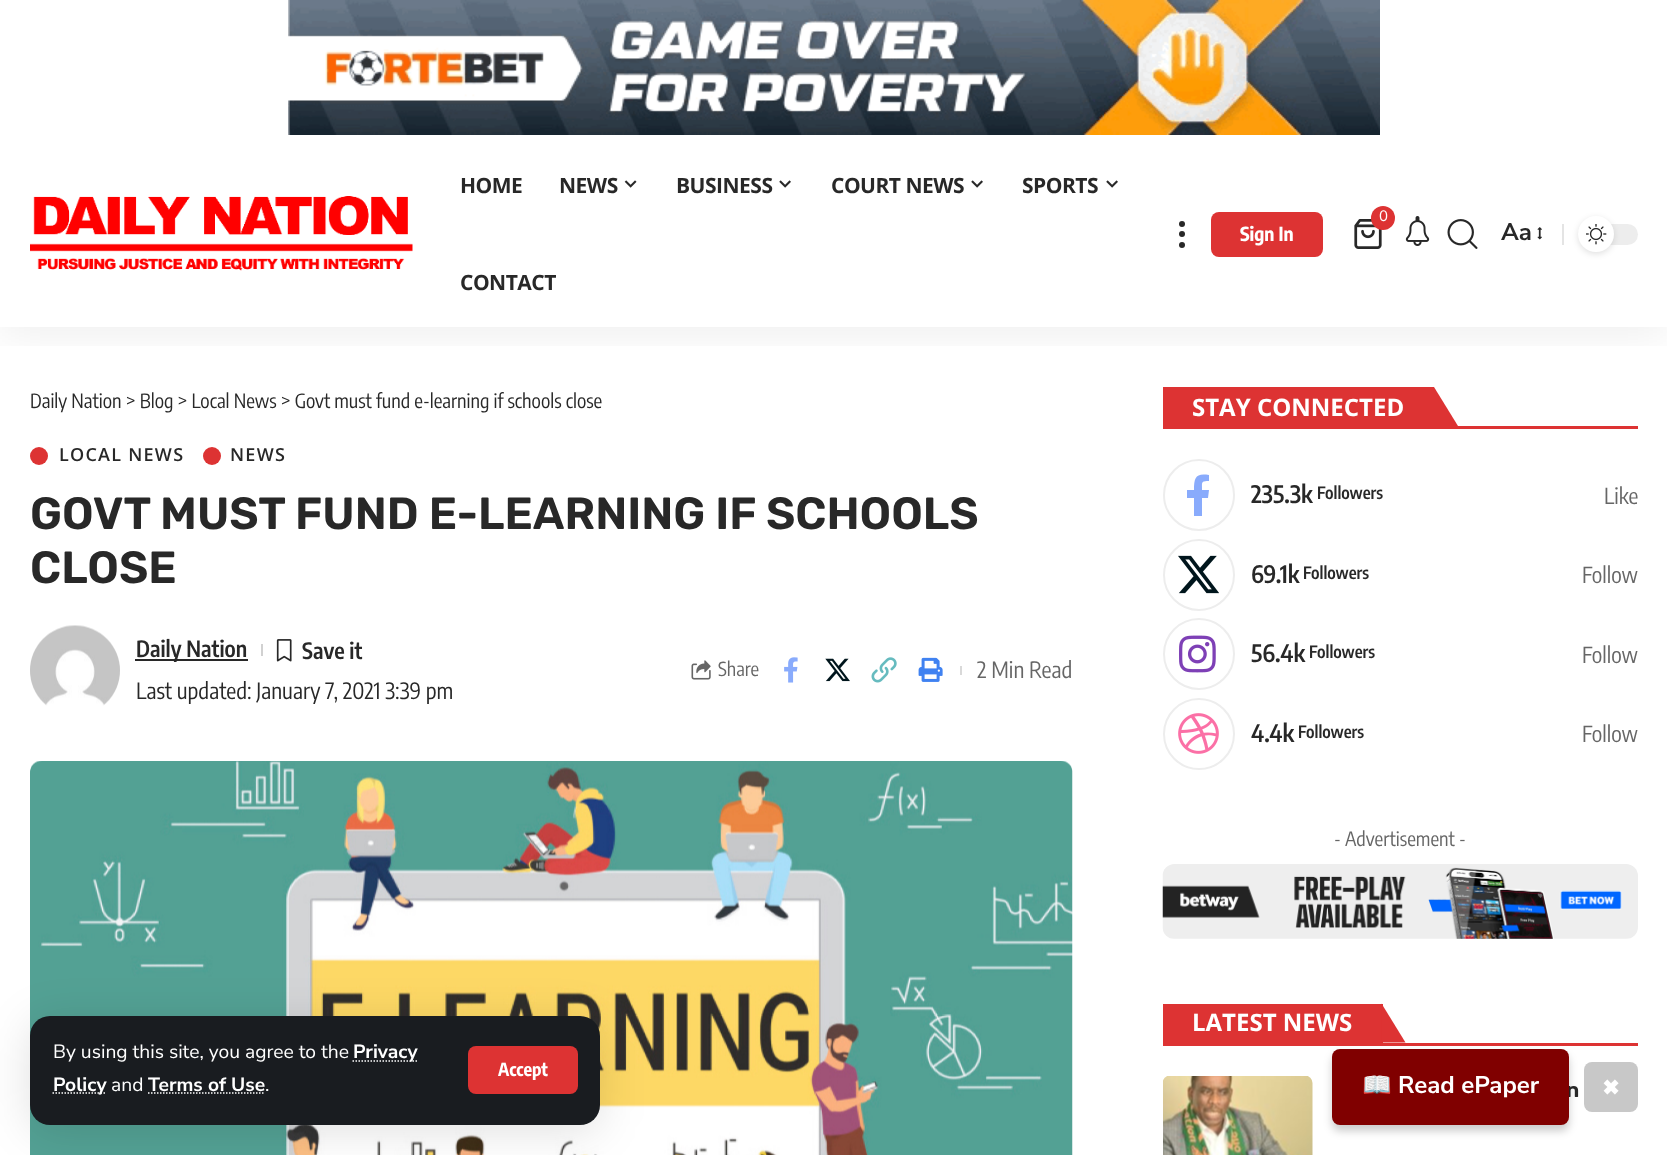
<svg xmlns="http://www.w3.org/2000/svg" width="1667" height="1155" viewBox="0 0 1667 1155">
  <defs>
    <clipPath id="clip1"><rect x="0" y="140" width="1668" height="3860"/></clipPath>
    <clipPath id="clip2"><rect x="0" y="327" width="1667" height="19"/></clipPath>
    <filter id="blur1" x="-50%" y="-200%" width="200%" height="500%"><feGaussianBlur stdDeviation="22.5"/></filter>
    <filter id="blur2" x="-50%" y="-200%" width="200%" height="500%"><feGaussianBlur stdDeviation="3"/></filter>
    <filter id="blur3" x="-50%" y="-200%" width="200%" height="500%"><feGaussianBlur stdDeviation="4.5"/></filter>
  </defs>
  <rect width="100%" height="100%" fill="#ffffff"/>
  <image x="288" y="0" width="1092" height="135" href="img1.png"/>
  <rect x="1163" y="387" width="271" height="39" fill="#dd3333"/>
  <path d="M1434 426V387L1458 426Z" fill="#dd3333"/>
  <g clip-path="url(#clip1)">
    <g clip-path="url(#clip2)">
      <rect x="0" y="146" width="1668" height="187" fill="#000000" fill-opacity="0.07" filter="url(#blur1)"/>
    </g>
  </g>
  <image x="30" y="196" width="383" height="75" href="img2.png"/>
  <text x="460" y="193" font-family="Open Sans" font-size="21" font-weight="bold" letter-spacing="-0.5" fill="#282828">HOME</text>
  <text x="559" y="193" font-family="Open Sans" font-size="21" font-weight="bold" letter-spacing="-0.5" fill="#282828">NEWS</text>
  <image x="624" y="180" width="13" height="8" href="img3.png"/>
  <text x="676" y="193" font-family="Open Sans" font-size="21" font-weight="bold" letter-spacing="-0.5" fill="#282828">BUSINESS</text>
  <image x="779" y="180" width="12" height="8" href="img4.png"/>
  <text x="831" y="193" font-family="Open Sans" font-size="21" font-weight="bold" letter-spacing="-0.5" fill="#282828">COURT NEWS</text>
  <image x="971" y="180" width="12" height="8" href="img4.png"/>
  <text x="1022" y="193" font-family="Open Sans" font-size="21" font-weight="bold" letter-spacing="-0.5" fill="#282828">SPORTS</text>
  <image x="1106" y="180" width="12" height="8" href="img4.png"/>
  <text x="460" y="290" font-family="Open Sans" font-size="21" font-weight="bold" letter-spacing="-0.5" fill="#282828">CONTACT</text>
  <circle cx="1182" cy="224" r="3" fill="#282828"/>
  <circle cx="1182" cy="234" r="3" fill="#282828"/>
  <circle cx="1182" cy="245" r="3" fill="#282828"/>
  <rect x="1211" y="212" width="112" height="45" rx="8" fill="#dd3333"/>
  <text x="1240" y="241" font-family="Encode Sans Condensed" font-size="19.25" font-weight="bold" fill="#ffffff">Sign In</text>
  <image x="1354" y="219" width="28" height="30" href="img5.png"/>
  <circle cx="1383" cy="218" r="12" fill="#dd3333"/>
  <text x="1379" y="221" font-family="Nunito Sans" font-size="15" fill="#ffffff">0</text>
  <image x="1405" y="216" width="25" height="30" href="img6.png"/>
  <image x="1447" y="219" width="31" height="30" href="img7.png"/>
  <text x="1501" y="240" font-family="Nunito Sans" font-size="24" font-weight="bold" fill="#282828">Aa</text>
  <image x="1537" y="227" width="5" height="13" href="img8.png"/>
  <rect x="1562" y="224" width="2" height="21" fill="#e4e4e4"/>
  <rect x="1578" y="224" width="60" height="21" rx="10.5" fill="#ededed"/>
  <rect x="1578" y="218" width="36" height="36" rx="18" fill="#000000" fill-opacity="0.12" filter="url(#blur2)"/>
  <circle cx="1596" cy="234" r="18" fill="#ffffff"/>
  <image x="1586" y="224" width="21" height="21" href="img9.png"/>
  <image x="30" y="761" width="1043" height="394" href="img17.png"/>
  <rect x="30" y="1022" width="570" height="109" rx="20" fill="#000000" fill-opacity="0.12" filter="url(#blur1)"/>
  <rect x="30" y="1016" width="570" height="109" rx="20" fill="#191c20"/>
  <text x="53" y="1058" font-family="Nunito Sans" font-size="19.25" fill="#ffffff">By using this site, you agree to the</text>
  <path d="M352.5 1061H417" fill="none" stroke="#ffffff" stroke-width="1.5" stroke-dasharray="1.5 1.5"/>
  <text x="353" y="1058" font-family="Nunito Sans" font-size="19.25" font-weight="bold" fill="#ffffff">Privacy</text>
  <path d="M52.5 1093H106" fill="none" stroke="#ffffff" stroke-width="1.5" stroke-dasharray="1.5 1.5"/>
  <text x="53" y="1091" font-family="Nunito Sans" font-size="19.25" font-weight="bold" fill="#ffffff">Policy</text>
  <text x="111" y="1091" font-family="Nunito Sans" font-size="19.25" fill="#ffffff">and</text>
  <text x="148" y="1091" font-family="Nunito Sans" font-size="19.25" font-weight="bold" fill="#ffffff">Terms of Use</text>
  <path d="M148 1093H265" fill="none" stroke="#ffffff" stroke-width="1.5" stroke-dasharray="1.5 1.5"/>
  <text x="265" y="1091" font-family="Nunito Sans" font-size="19.25" fill="#ffffff">.</text>
  <rect x="468" y="1046" width="110" height="48" rx="8" fill="#dd3333"/>
  <text x="498" y="1076" font-family="Encode Sans Condensed" font-size="18" font-weight="bold" fill="#ffffff">Accept</text>
  <text x="30" y="408" font-family="Encode Sans Condensed" font-size="19.5" fill="#282828">Daily Nation &gt; Blog &gt; Local News &gt; Govt must fund e-learning if schools close</text>
  <circle cx="39" cy="456" r="9" fill="#dd3333"/>
  <text x="59" y="461" font-family="Open Sans" font-size="18" font-weight="600" letter-spacing="1.25" fill="#282828">LOCAL NEWS</text>
  <circle cx="212" cy="456" r="9" fill="#dd3333"/>
  <text x="230" y="461" font-family="Open Sans" font-size="18" font-weight="600" letter-spacing="1.25" fill="#282828">NEWS</text>
  <text x="30" y="529" font-family="Rubik" font-size="45" font-weight="600" fill="#282828">GOVT MUST FUND E-LEARNING IF SCHOOLS</text>
  <text x="30" y="583" font-family="Rubik" font-size="45" font-weight="600" fill="#282828">CLOSE</text>
  <image x="30" y="625" width="90" height="81" href="img10.png"/>
  <rect x="135" y="659" width="113" height="2" fill="#282828"/>
  <text x="136" y="657" font-family="Encode Sans Condensed" font-size="22.4" font-weight="600" fill="#282828">Daily Nation</text>
  <rect x="261" y="644" width="2" height="12" fill="#d1d1d1"/>
  <image x="276" y="639" width="16" height="23" href="img11.png"/>
  <text x="302" y="659" font-family="Encode Sans Condensed" font-size="22.4" font-weight="600" fill="#282828">Save it</text>
  <text x="136" y="699" font-family="Encode Sans Condensed" font-size="22.4" fill="#282828">Last updated: January 7, 2021 3:39 pm</text>
  <image x="691" y="660" width="20" height="20" href="img12.png"/>
  <text x="718" y="676" font-family="Encode Sans Condensed" font-size="19.25" fill="#666666">Share</text>
  <image x="784" y="657" width="14" height="26" href="img13.png"/>
  <image x="825" y="658" width="25" height="24" href="img14.png"/>
  <image x="871" y="657" width="26" height="26" href="img15.png"/>
  <image x="918" y="657" width="25" height="25" href="img16.png"/>
  <rect x="960" y="666" width="2" height="9" fill="#d9d9d9"/>
  <text x="977" y="678" font-family="Encode Sans Condensed" font-size="22.4" fill="#666666">2 Min Read</text>
  <rect x="1163" y="426" width="475" height="3" fill="#dd3333"/>
  <text x="1192" y="416" font-family="Open Sans" font-size="24" font-weight="bold" fill="#ffffff">STAY CONNECTED</text>
  <circle cx="1199" cy="495" r="35" fill="none" stroke="#ededed" stroke-width="2"/>
  <path d="M1208 498L1209 490H1202C1202 482 1201 481 1209 481V475C1196 473 1194 477 1194 490H1187V498H1194V516H1202V498Z" fill="#89abfc"/>
  <text x="1251" y="503" font-family="Encode Sans Condensed" font-size="24" font-weight="600" fill="#282828">235.3k</text>
  <text x="1317" y="499" font-family="Encode Sans Condensed" font-size="17" font-weight="600" fill="#282828">Followers</text>
  <text x="1604" y="504" font-family="Encode Sans Condensed" font-size="22" fill="#666666">Like</text>
  <circle cx="1199" cy="575" r="35" fill="none" stroke="#ededed" stroke-width="2"/>
  <image x="1178" y="555" width="41" height="39" href="img18.png"/>
  <text x="1251" y="583" font-family="Encode Sans Condensed" font-size="24" font-weight="600" fill="#282828">69.1k</text>
  <text x="1303" y="579" font-family="Encode Sans Condensed" font-size="17" font-weight="600" fill="#282828">Followers</text>
  <text x="1582" y="583" font-family="Encode Sans Condensed" font-size="22" fill="#666666">Follow</text>
  <circle cx="1199" cy="654" r="35" fill="none" stroke="#ededed" stroke-width="2"/>
  <image x="1179" y="635" width="37" height="38" href="img19.png"/>
  <text x="1251" y="662" font-family="Encode Sans Condensed" font-size="24" font-weight="600" fill="#282828">56.4k</text>
  <text x="1309" y="658" font-family="Encode Sans Condensed" font-size="17" font-weight="600" fill="#282828">Followers</text>
  <text x="1582" y="663" font-family="Encode Sans Condensed" font-size="22" fill="#666666">Follow</text>
  <circle cx="1199" cy="734" r="35" fill="none" stroke="#ededed" stroke-width="2"/>
  <image x="1178" y="713" width="41" height="41" href="img20.png"/>
  <text x="1251" y="742" font-family="Encode Sans Condensed" font-size="24" font-weight="600" fill="#282828">4.4k</text>
  <text x="1298" y="738" font-family="Encode Sans Condensed" font-size="17" font-weight="600" fill="#282828">Followers</text>
  <text x="1582" y="742" font-family="Encode Sans Condensed" font-size="22" fill="#666666">Follow</text>
  <text x="1334" y="846" font-family="Encode Sans Condensed" font-size="19.5" fill="#666666">- Advertisement -</text>
  <image x="1162" y="864" width="476" height="75" href="img21.png"/>
  <rect x="1163" y="1043" width="475" height="3" fill="#dd3333"/>
  <rect x="1163" y="1004" width="220" height="39" fill="#dd3333"/>
  <path d="M1381.5 1042.5V1003.5L1405.5 1042.5Z" fill="#dd3333"/>
  <text x="1192" y="1031" font-family="Open Sans" font-size="24" font-weight="bold" fill="#ffffff">LATEST NEWS</text>
  <image x="1163" y="1076" width="150" height="79" href="img22.png"/>
  <text x="1566" y="1097" font-family="Rubik" font-size="21" font-weight="600" fill="#282828">n</text>
  <rect x="1332" y="1055" width="237" height="76" rx="8" fill="#000000" fill-opacity="0.2" filter="url(#blur3)"/>
  <rect x="1332" y="1049" width="237" height="76" rx="8" fill="#800000"/>
  <text x="1362" y="1093" font-family="Noto Color Emoji" font-size="24" font-weight="bold" fill="#ffffff">📖</text>
  <text x="1398" y="1093" font-family="Nunito Sans" font-size="24" font-weight="bold" fill="#ffffff">Read ePaper</text>
  <rect x="1584" y="1062" width="54" height="50" rx="8" fill="#c8c8c8"/>
  <text x="1602" y="1095" font-family="DejaVu Sans" font-size="21" font-weight="bold" fill="#ffffff">✖</text>
</svg>
